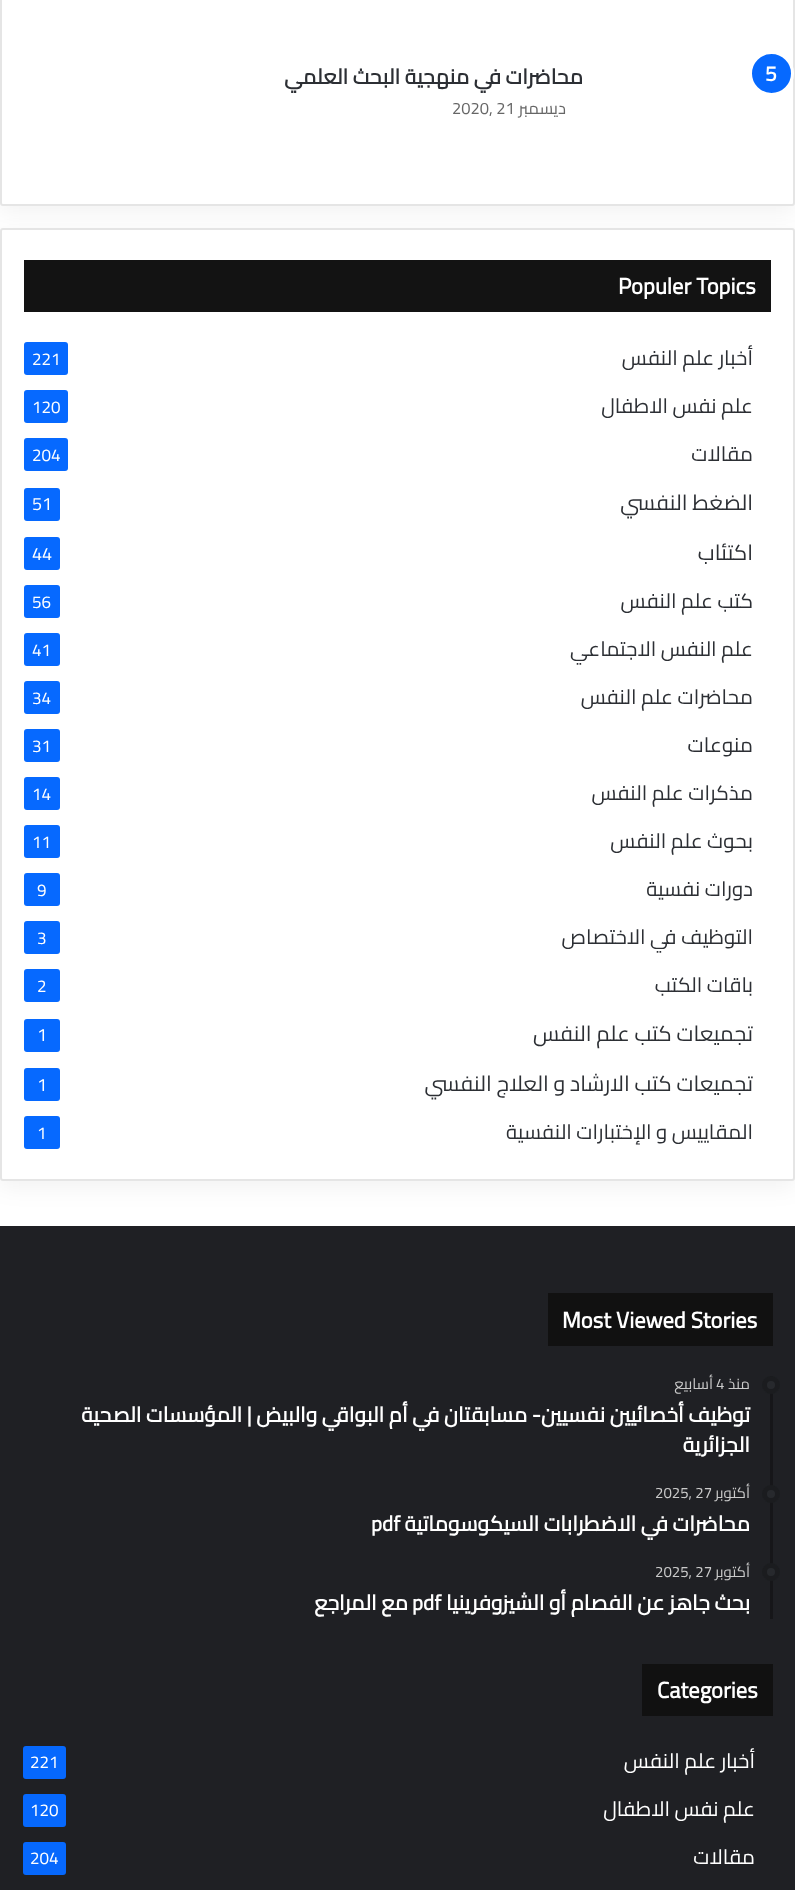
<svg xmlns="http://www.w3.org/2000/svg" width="795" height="1890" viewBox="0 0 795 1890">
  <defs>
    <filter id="blur1" x="-50%" y="-200%" width="200%" height="500%"><feGaussianBlur stdDeviation="11"/></filter>
  </defs>
  <rect width="100%" height="100%" fill="#ffffff"/>
  <rect x="0" y="-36" width="795" height="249" rx="3" fill="#000000" fill-opacity="0.05" filter="url(#blur1)"/>
  <rect x="1" y="-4" width="793" height="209" rx="2" fill="#ffffff" stroke="#e5e5e5" stroke-width="2"/>
  <circle cx="771.5" cy="73.5" r="21" fill="#0669ff" stroke="#ffffff" stroke-width="3"/>
  <text x="765" y="81" font-family="Cairo" font-size="21" font-weight="bold" fill="#ffffff">5</text>
  <text x="583" y="84" font-family="Cairo" font-size="21" font-weight="bold" direction="rtl" fill="#2c2f34">محاضرات في منهجية البحث العلمي</text>
  <text x="566" y="114" font-family="Cairo" font-size="16.5" direction="rtl" fill="#666666">ديسمبر</text>
  <text x="452" y="114" font-family="Cairo" font-size="16.5" fill="#666666">2020, 21</text>
  <rect x="0" y="236" width="795" height="952" rx="3" fill="#000000" fill-opacity="0.05" filter="url(#blur1)"/>
  <rect x="1" y="229" width="793" height="951" rx="2" fill="#ffffff" stroke="#e5e5e5" stroke-width="2"/>
  <rect x="24" y="260" width="747" height="52" fill="#131313"/>
  <text x="618" y="294" font-family="Cairo" font-size="22.5" font-weight="bold" fill="#ffffff">Populer Topics</text>
  <text x="753" y="365" font-family="Cairo" font-size="20.5" direction="rtl" fill="#2c2f34">أخبار علم النفس</text>
  <rect x="24" y="342" width="44" height="33" rx="3" fill="#0669ff"/>
  <text x="32" y="365" font-family="Cairo" font-size="17" fill="#ffffff">221</text>
  <text x="753" y="413" font-family="Cairo" font-size="20.5" direction="rtl" fill="#2c2f34">علم نفس الاطفال</text>
  <rect x="24" y="390" width="44" height="33" rx="3" fill="#0669ff"/>
  <text x="32" y="413" font-family="Cairo" font-size="17" fill="#ffffff">120</text>
  <text x="753" y="461" font-family="Cairo" font-size="20.5" direction="rtl" fill="#2c2f34">مقالات</text>
  <rect x="24" y="438" width="44" height="33" rx="3" fill="#0669ff"/>
  <text x="32" y="461" font-family="Cairo" font-size="17" fill="#ffffff">204</text>
  <text x="753" y="510" font-family="Cairo" font-size="21.5" direction="rtl" fill="#2c2f34">الضغط النفسي</text>
  <rect x="24" y="488" width="36" height="33" rx="3" fill="#0669ff"/>
  <text x="32" y="510" font-family="Cairo" font-size="18" fill="#ffffff">51</text>
  <text x="753" y="560" font-family="Cairo" font-size="21.5" direction="rtl" fill="#2c2f34">اكتئاب</text>
  <rect x="24" y="537" width="36" height="33" rx="3" fill="#0669ff"/>
  <text x="32" y="560" font-family="Cairo" font-size="18" fill="#ffffff">44</text>
  <text x="753" y="608" font-family="Cairo" font-size="20.5" direction="rtl" fill="#2c2f34">كتب علم النفس</text>
  <rect x="24" y="585" width="36" height="33" rx="3" fill="#0669ff"/>
  <text x="32" y="608" font-family="Cairo" font-size="17" fill="#ffffff">56</text>
  <text x="753" y="656" font-family="Cairo" font-size="20.5" direction="rtl" fill="#2c2f34">علم النفس الاجتماعي</text>
  <rect x="24" y="633" width="36" height="33" rx="3" fill="#0669ff"/>
  <text x="32" y="656" font-family="Cairo" font-size="17" fill="#ffffff">41</text>
  <text x="753" y="704" font-family="Cairo" font-size="20.5" direction="rtl" fill="#2c2f34">محاضرات علم النفس</text>
  <rect x="24" y="681" width="36" height="33" rx="3" fill="#0669ff"/>
  <text x="32" y="704" font-family="Cairo" font-size="17" fill="#ffffff">34</text>
  <text x="753" y="752" font-family="Cairo" font-size="20.5" direction="rtl" fill="#2c2f34">منوعات</text>
  <rect x="24" y="729" width="36" height="33" rx="3" fill="#0669ff"/>
  <text x="32" y="752" font-family="Cairo" font-size="17" fill="#ffffff">31</text>
  <text x="753" y="800" font-family="Cairo" font-size="20.5" direction="rtl" fill="#2c2f34">مذكرات علم النفس</text>
  <rect x="24" y="777" width="36" height="33" rx="3" fill="#0669ff"/>
  <text x="32" y="800" font-family="Cairo" font-size="17" fill="#ffffff">14</text>
  <text x="753" y="848" font-family="Cairo" font-size="20.5" direction="rtl" fill="#2c2f34">بحوث علم النفس</text>
  <rect x="24" y="825" width="36" height="33" rx="3" fill="#0669ff"/>
  <text x="32" y="848" font-family="Cairo" font-size="17" fill="#ffffff">11</text>
  <text x="753" y="896" font-family="Cairo" font-size="20.5" direction="rtl" fill="#2c2f34">دورات نفسية</text>
  <rect x="24" y="873" width="36" height="33" rx="3" fill="#0669ff"/>
  <text x="37" y="896" font-family="Cairo" font-size="17" fill="#ffffff">9</text>
  <text x="753" y="944" font-family="Cairo" font-size="20.5" direction="rtl" fill="#2c2f34">التوظيف في الاختصاص</text>
  <rect x="24" y="921" width="36" height="33" rx="3" fill="#0669ff"/>
  <text x="37" y="944" font-family="Cairo" font-size="17" fill="#ffffff">3</text>
  <text x="753" y="992" font-family="Cairo" font-size="20.5" direction="rtl" fill="#2c2f34">باقات الكتب</text>
  <rect x="24" y="969" width="36" height="33" rx="3" fill="#0669ff"/>
  <text x="37" y="992" font-family="Cairo" font-size="17" fill="#ffffff">2</text>
  <text x="753" y="1041" font-family="Cairo" font-size="21.5" direction="rtl" fill="#2c2f34">تجميعات كتب علم النفس</text>
  <rect x="24" y="1019" width="36" height="33" rx="3" fill="#0669ff"/>
  <text x="37" y="1041" font-family="Cairo" font-size="18" fill="#ffffff">1</text>
  <text x="753" y="1091" font-family="Cairo" font-size="21.5" direction="rtl" fill="#2c2f34">تجميعات كتب الارشاد و العلاج النفسي</text>
  <rect x="24" y="1068" width="36" height="33" rx="3" fill="#0669ff"/>
  <text x="37" y="1091" font-family="Cairo" font-size="18" fill="#ffffff">1</text>
  <text x="753" y="1139" font-family="Cairo" font-size="20.5" direction="rtl" fill="#2c2f34">المقاييس و الإختبارات النفسية</text>
  <rect x="24" y="1116" width="36" height="33" rx="3" fill="#0669ff"/>
  <text x="37" y="1139" font-family="Cairo" font-size="17" fill="#ffffff">1</text>
  <rect x="0" y="1226" width="795" height="664" fill="#1f2024"/>
  <rect x="548" y="1293" width="225" height="53" fill="#111111"/>
  <text x="562" y="1328" font-family="Cairo" font-size="22.5" font-weight="bold" fill="#ffffff">Most Viewed Stories</text>
  <rect x="770" y="1376" width="3" height="243" fill="#161619"/>
  <circle cx="771" cy="1385" r="9" fill="#27292d"/>
  <circle cx="771" cy="1385" r="6.5" fill="none" stroke="#000000" stroke-opacity="0.3" stroke-width="5"/>
  <text x="750" y="1389" font-family="Cairo" font-size="15" direction="rtl" fill="#cacaca">منذ</text>
  <text x="716" y="1389" font-family="Cairo" font-size="15" fill="#cacaca">4</text>
  <text x="713" y="1389" font-family="Cairo" font-size="15" direction="rtl" fill="#cacaca">أسابيع</text>
  <text x="750" y="1422" font-family="Cairo" font-size="21" font-weight="bold" direction="rtl" fill="#ffffff">توظيف أخصائيين نفسيين- مسابقتان في أم البواقي والبيض | المؤسسات الصحية</text>
  <text x="750" y="1452" font-family="Cairo" font-size="21" font-weight="bold" direction="rtl" fill="#ffffff">الجزائرية</text>
  <circle cx="771" cy="1494" r="9" fill="#27292d"/>
  <circle cx="771" cy="1494" r="6.5" fill="none" stroke="#000000" stroke-opacity="0.3" stroke-width="5"/>
  <text x="750" y="1498" font-family="Cairo" font-size="15" direction="rtl" fill="#cacaca">أكتوبر</text>
  <text x="655" y="1498" font-family="Cairo" font-size="15" fill="#cacaca">2025, 27</text>
  <text x="750" y="1531" font-family="Cairo" font-size="21" font-weight="bold" direction="rtl" fill="#ffffff">محاضرات في الاضطرابات السيكوسوماتية</text>
  <text x="371" y="1531" font-family="Cairo" font-size="21" font-weight="bold" fill="#ffffff">pdf</text>
  <circle cx="771" cy="1572" r="9" fill="#27292d"/>
  <circle cx="771" cy="1572" r="6.5" fill="none" stroke="#000000" stroke-opacity="0.3" stroke-width="5"/>
  <text x="750" y="1577" font-family="Cairo" font-size="15" direction="rtl" fill="#cacaca">أكتوبر</text>
  <text x="655" y="1577" font-family="Cairo" font-size="15" fill="#cacaca">2025, 27</text>
  <text x="750" y="1610" font-family="Cairo" font-size="21" font-weight="bold" direction="rtl" fill="#ffffff">بحث جاهز عن الفصام أو الشيزوفرينيا</text>
  <text x="412" y="1610" font-family="Cairo" font-size="21" font-weight="bold" fill="#ffffff">pdf</text>
  <text x="408" y="1610" font-family="Cairo" font-size="21" font-weight="bold" direction="rtl" fill="#ffffff">مع المراجع</text>
  <rect x="642" y="1664" width="131" height="52" fill="#111111"/>
  <text x="657" y="1698" font-family="Cairo" font-size="22.5" font-weight="bold" fill="#ffffff">Categories</text>
  <text x="755" y="1768" font-family="Cairo" font-size="20.5" direction="rtl" fill="#ffffff">أخبار علم النفس</text>
  <rect x="23" y="1746" width="43" height="33" rx="3" fill="#0668fd"/>
  <text x="30" y="1768" font-family="Cairo" font-size="17" fill="#ffffff">221</text>
  <text x="755" y="1816" font-family="Cairo" font-size="20.5" direction="rtl" fill="#ffffff">علم نفس الاطفال</text>
  <rect x="23" y="1794" width="43" height="33" rx="3" fill="#0668fd"/>
  <text x="30" y="1816" font-family="Cairo" font-size="17" fill="#ffffff">120</text>
  <text x="755" y="1864" font-family="Cairo" font-size="20.5" direction="rtl" fill="#ffffff">مقالات</text>
  <rect x="23" y="1842" width="43" height="33" rx="3" fill="#0668fd"/>
  <text x="30" y="1864" font-family="Cairo" font-size="17" fill="#ffffff">204</text>
</svg>
